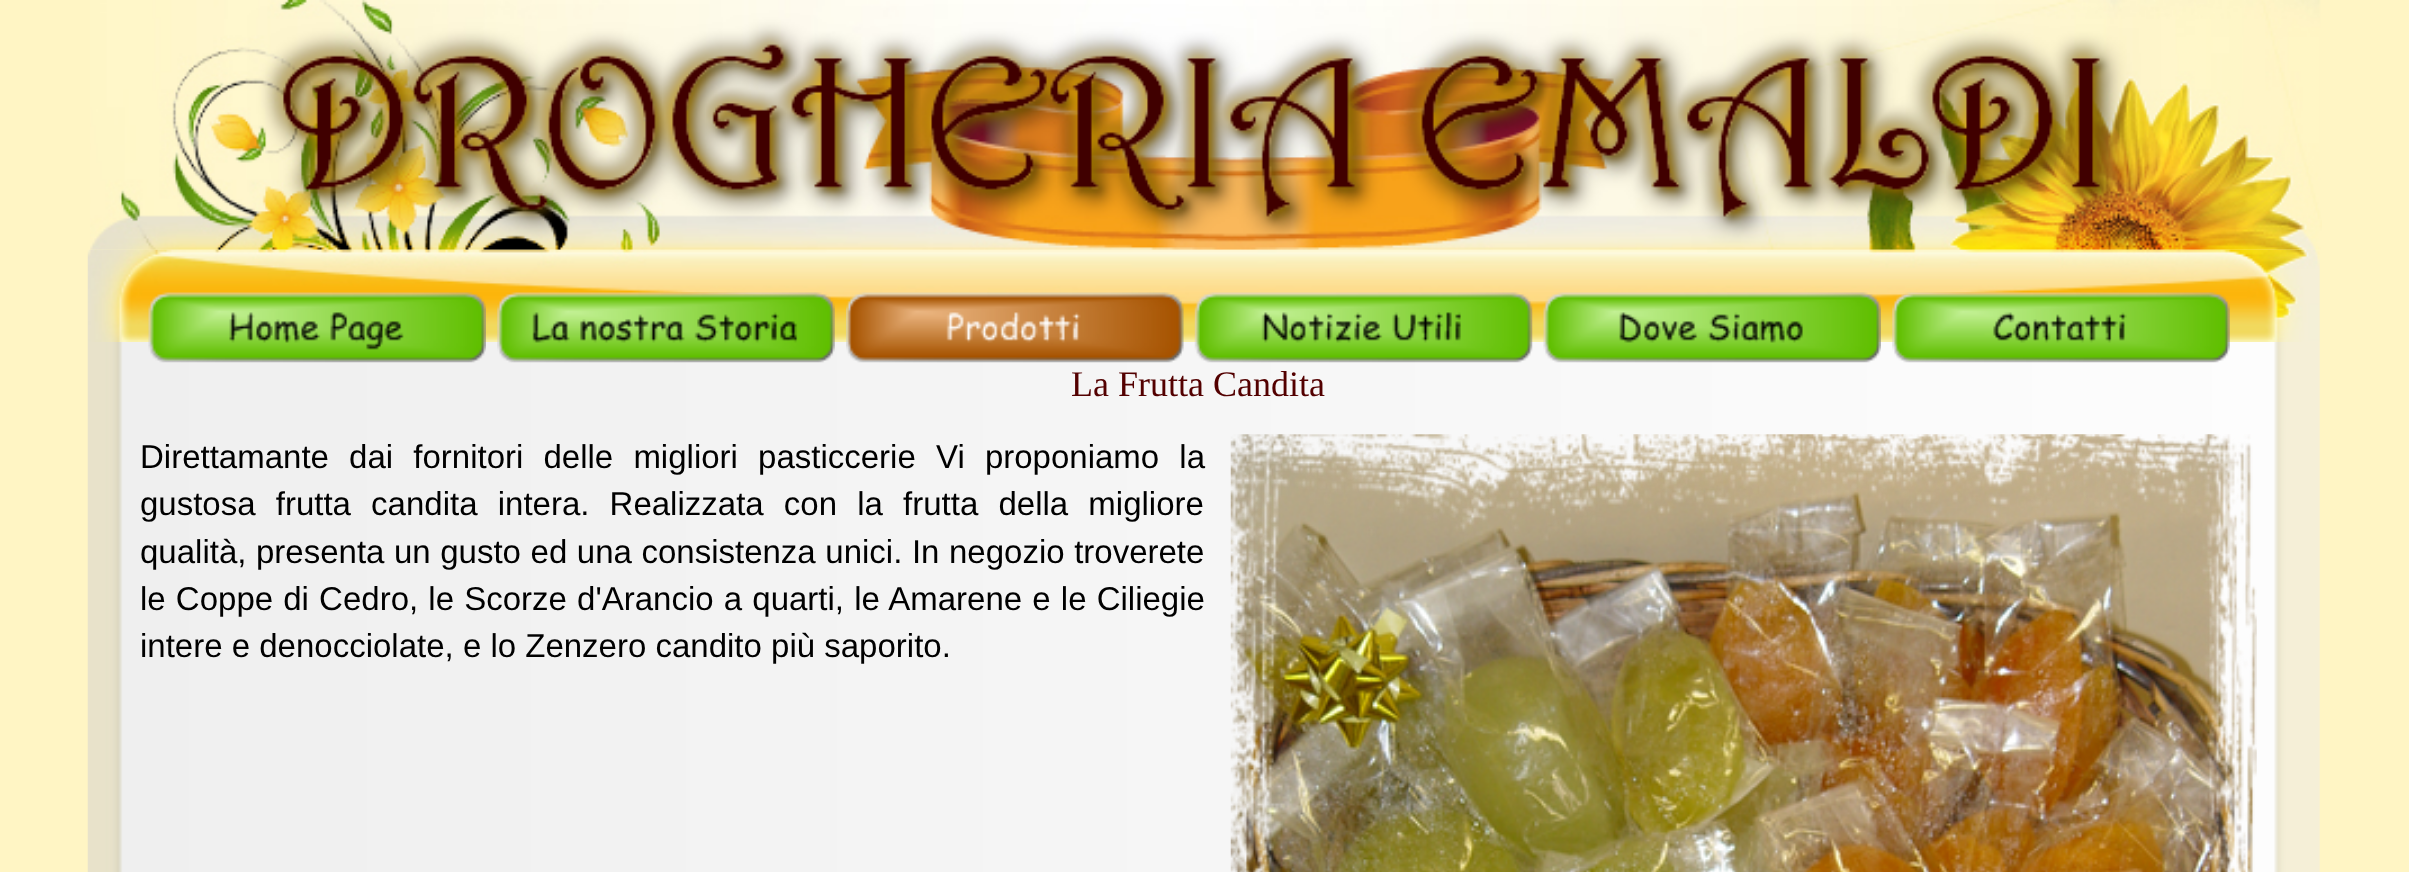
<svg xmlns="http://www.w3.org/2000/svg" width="2409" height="872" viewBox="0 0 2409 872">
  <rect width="100%" height="100%" fill="#fff5c4"/>
  <image x="90" y="0" width="2232" height="250" href="img1.png"/>
  <image x="87" y="249" width="2233" height="93" href="img2.png"/>
  <image x="87" y="342" width="2233" height="530" href="img9.png"/>
  <image x="148" y="292" width="338" height="71" href="img3.png"/>
  <image x="497" y="292" width="338" height="71" href="img4.png"/>
  <image x="846" y="292" width="338" height="71" href="img5.png"/>
  <image x="1194" y="292" width="339" height="71" href="img6.png"/>
  <image x="1543" y="292" width="338" height="71" href="img7.png"/>
  <image x="1892" y="292" width="338" height="71" href="img8.png"/>
  <text x="1071" y="396" font-family="Liberation Serif" font-size="36" fill="#530000">La Frutta Candita</text>
  <text x="140" y="468" word-spacing="11" font-family="Liberation Sans" font-size="33" fill="#000000">Direttamante dai fornitori delle migliori pasticcerie Vi proponiamo la</text>
  <text x="140" y="515" word-spacing="11" font-family="Liberation Sans" font-size="33" fill="#000000">gustosa frutta candita intera. Realizzata con la frutta della migliore</text>
  <text x="140" y="563" word-spacing="0.4" font-family="Liberation Sans" font-size="33" fill="#000000">qualità, presenta un gusto ed una consistenza unici. In negozio troverete</text>
  <text x="140" y="610" word-spacing="1" font-family="Liberation Sans" font-size="33" fill="#000000">le Coppe di Cedro, le Scorze d'Arancio a quarti, le Amarene e le Ciliegie</text>
  <text x="140" y="657" font-family="Liberation Sans" font-size="33" fill="#000000">intere e denocciolate, e lo Zenzero candito più saporito.</text>
  <image x="1230" y="434" width="1027" height="438" href="img10.png"/>
</svg>
